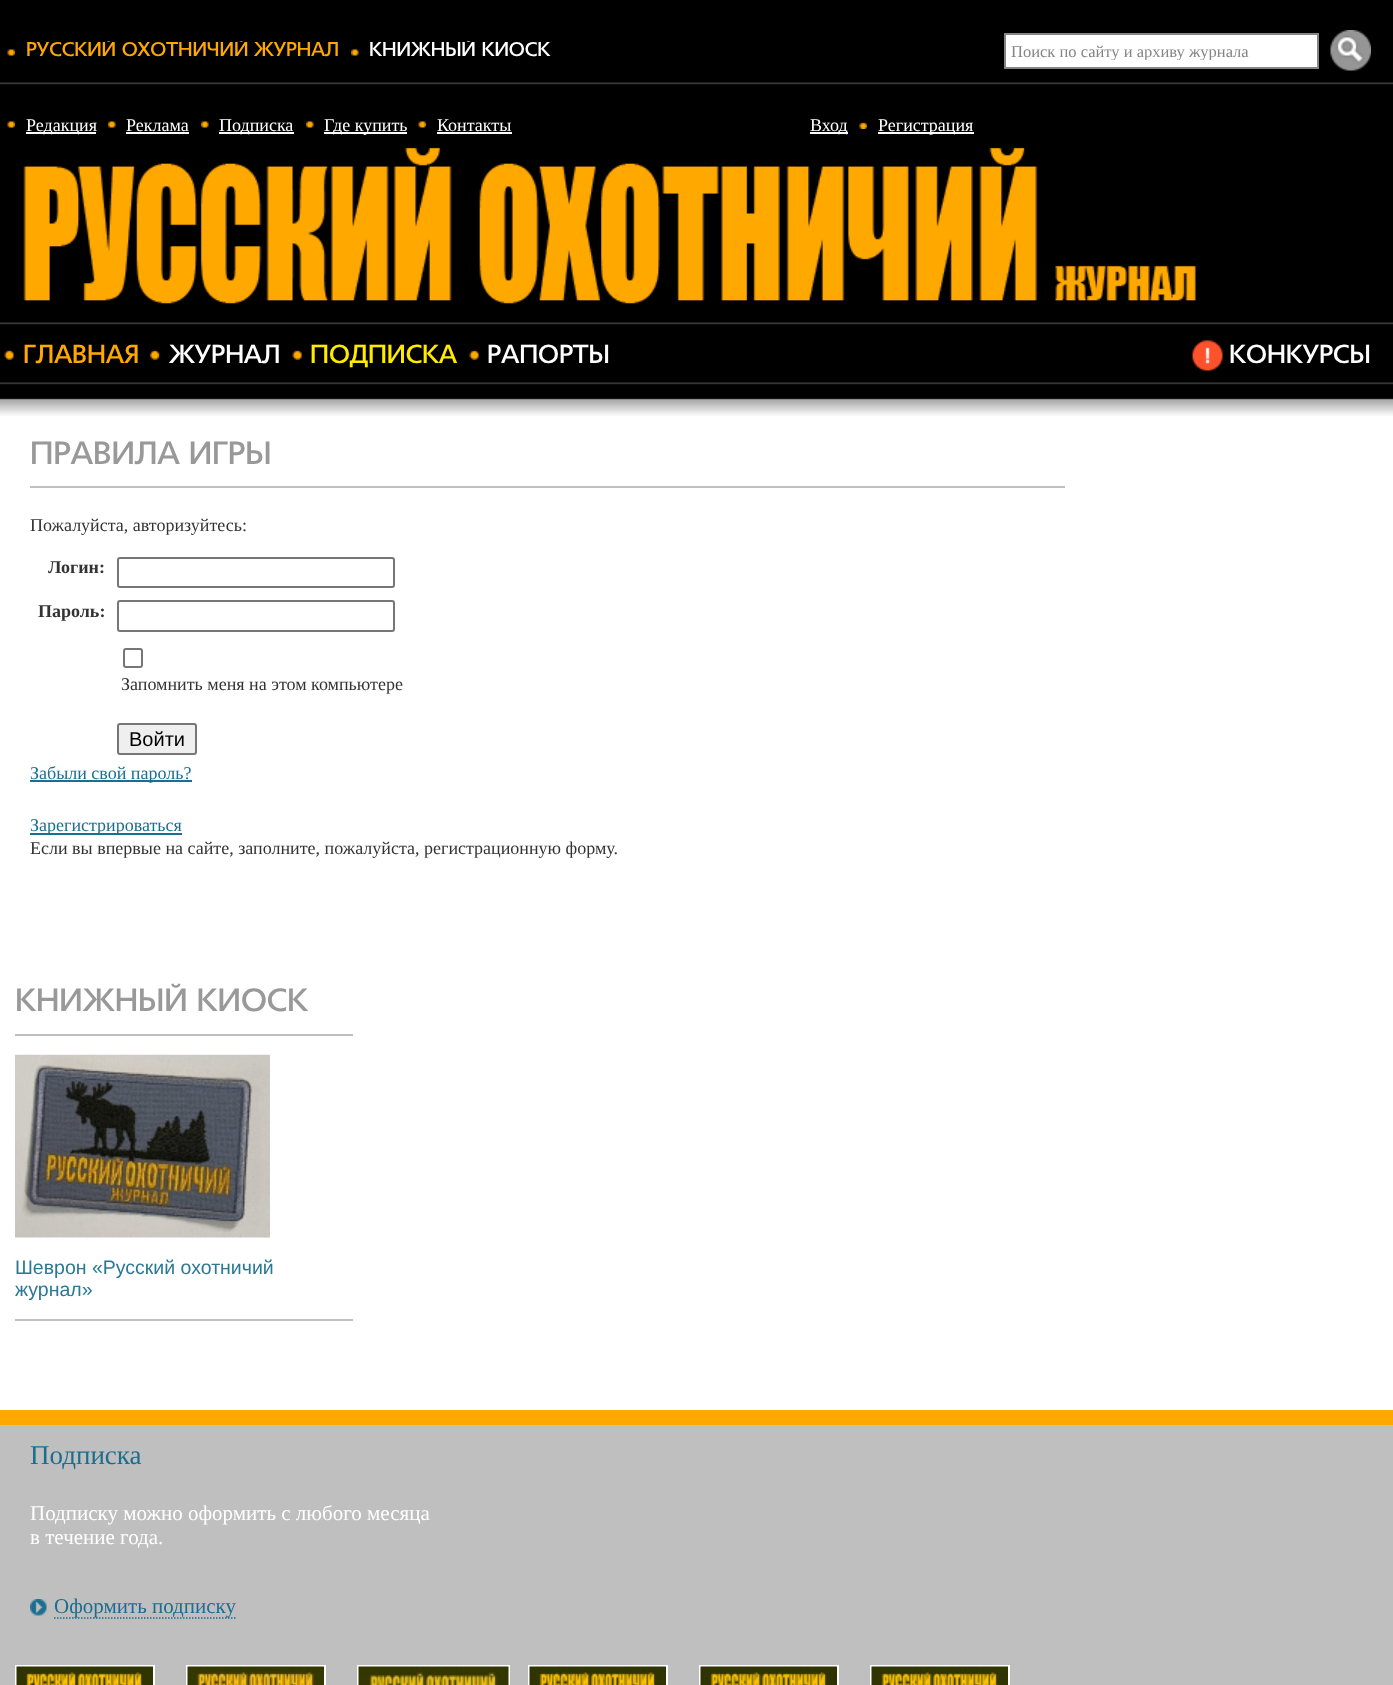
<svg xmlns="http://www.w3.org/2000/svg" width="1393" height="1685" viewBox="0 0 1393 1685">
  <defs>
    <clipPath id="clip1"><rect x="0" y="41" width="1013" height="21"/></clipPath>
    <clipPath id="clip2"><rect x="1011" y="42" width="300" height="18"/></clipPath>
  </defs>
  <rect width="100%" height="100%" fill="#ffffff"/>
  <rect x="0" y="0" width="1393" height="30" fill="#000000"/>
  <image x="0" y="30" width="1393" height="386" href="img1.png"/>
  <image x="7" y="49" width="8" height="7" href="img2.png"/>
  <g clip-path="url(#clip1)">
    <text x="26" y="56" font-family="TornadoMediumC" font-size="19.5" font-weight="500" fill="#ffa800">РУССКИЙ ОХОТНИЧИЙ ЖУРНАЛ</text>
  </g>
  <image x="351" y="49" width="8" height="7" href="img3.png"/>
  <g clip-path="url(#clip1)">
    <text x="369" y="56" font-family="TornadoMediumC" font-size="19.5" font-weight="500" fill="#ffffff">КНИЖНЫЙ КИОСК</text>
  </g>
  <rect x="1005" y="34" width="313" height="34" fill="#ffffff" stroke="#858585" stroke-width="2"/>
  <g clip-path="url(#clip2)">
    <text x="1011" y="57" font-family="Liberation Serif" font-size="16.5" fill="#858585">Поиск по сайту и архиву журнала</text>
  </g>
  <image x="1330" y="30" width="41" height="41" href="img4.png"/>
  <image x="7" y="121" width="8" height="7" href="img2.png"/>
  <rect x="26" y="132" width="70" height="2" fill="#ffffff"/>
  <text x="26" y="131" font-family="Liberation Serif" font-size="18" fill="#ffffff">Редакция</text>
  <image x="108" y="121" width="8" height="7" href="img5.png"/>
  <text x="126" y="131" font-family="Liberation Serif" font-size="18" fill="#ffffff">Реклама</text>
  <rect x="126" y="132" width="63" height="2" fill="#ffffff"/>
  <image x="201" y="121" width="8" height="7" href="img5.png"/>
  <rect x="219" y="132" width="75" height="2" fill="#ffffff"/>
  <text x="219" y="131" font-family="Liberation Serif" font-size="18" fill="#ffffff">Подписка</text>
  <image x="306" y="121" width="8" height="7" href="img3.png"/>
  <rect x="324" y="132" width="83" height="2" fill="#ffffff"/>
  <text x="324" y="131" font-family="Liberation Serif" font-size="18" fill="#ffffff">Где купить</text>
  <image x="418" y="121" width="8" height="7" href="img6.png"/>
  <text x="437" y="131" font-family="Liberation Serif" font-size="18" fill="#ffffff">Контакты</text>
  <rect x="437" y="132" width="75" height="2" fill="#ffffff"/>
  <rect x="810" y="132" width="38" height="2" fill="#ffffff"/>
  <text x="810" y="131" font-family="Liberation Serif" font-size="18" fill="#ffffff">Вход</text>
  <image x="859" y="122" width="8" height="7" href="img7.png"/>
  <rect x="878" y="132" width="96" height="2" fill="#ffffff"/>
  <text x="878" y="131" font-family="Liberation Serif" font-size="18" fill="#ffffff">Регистрация</text>
  <image x="23" y="147" width="1173" height="157" href="img8.png"/>
  <image x="4" y="350" width="10" height="10" href="img9.png"/>
  <text x="23" y="363" font-family="TornadoMediumC" font-size="25.5" font-weight="500" fill="#ffa800">ГЛАВНАЯ</text>
  <image x="150" y="350" width="10" height="10" href="img10.png"/>
  <text x="169" y="363" font-family="TornadoMediumC" font-size="25.5" font-weight="500" fill="#ffffff">ЖУРНАЛ</text>
  <image x="292" y="350" width="10" height="10" href="img11.png"/>
  <text x="310" y="363" font-family="TornadoMediumC" font-size="25.5" font-weight="500" fill="#ffeb00">ПОДПИСКА</text>
  <image x="469" y="350" width="10" height="10" href="img9.png"/>
  <text x="487" y="363" font-family="TornadoMediumC" font-size="25.5" font-weight="500" fill="#ffffff">РАПОРТЫ</text>
  <image x="1192" y="340" width="31" height="31" href="img12.png"/>
  <text x="1229" y="363" font-family="TornadoMediumC" font-size="25.5" font-weight="500" fill="#ffffff">КОНКУРСЫ</text>
  <rect x="30" y="486" width="1035" height="2" fill="#bfbfbf"/>
  <text x="30" y="464" font-family="TornadoMediumC" font-size="31.5" font-weight="500" fill="#999999">ПРАВИЛА ИГРЫ</text>
  <text x="30" y="531" font-family="Liberation Serif" font-size="18" fill="#333333">Пожалуйста, авторизуйтесь:</text>
  <text x="48" y="573" font-family="Liberation Serif" font-size="18" font-weight="bold" fill="#333333">Логин:</text>
  <rect x="118" y="558" width="276" height="29" rx="2" fill="none" stroke="#767676" stroke-width="2"/>
  <text x="38" y="617" font-family="Liberation Serif" font-size="18" font-weight="bold" fill="#333333">Пароль:</text>
  <rect x="118" y="601" width="276" height="30" rx="2" fill="none" stroke="#767676" stroke-width="2"/>
  <rect x="124" y="649" width="18" height="18" rx="2" fill="none" stroke="#767676" stroke-width="2"/>
  <text x="121" y="690" font-family="Liberation Serif" font-size="18" fill="#333333">Запомнить меня на этом компьютере</text>
  <rect x="118" y="724" width="78" height="30" rx="2" fill="#efefef" stroke="#767676" stroke-width="2"/>
  <text x="129" y="746" font-family="Liberation Sans" font-size="20" fill="#000000">Войти</text>
  <rect x="30" y="780" width="162" height="2" fill="#1b6e8f"/>
  <text x="30" y="779" font-family="Liberation Serif" font-size="18" fill="#1b6e8f">Забыли свой пароль?</text>
  <rect x="30" y="833" width="152" height="2" fill="#1b6e8f"/>
  <text x="30" y="831" font-family="Liberation Serif" font-size="18" fill="#1b6e8f">Зарегистрироваться</text>
  <text x="30" y="854" font-family="Liberation Serif" font-size="18" fill="#333333">Если вы впервые на сайте, заполните, пожалуйста, регистрационную форму.</text>
  <rect x="15" y="1034" width="338" height="2" fill="#bfbfbf"/>
  <text x="15" y="1011" font-family="TornadoMediumC" font-size="31.5" font-weight="500" fill="#999999">КНИЖНЫЙ КИОСК</text>
  <rect x="15" y="1319" width="338" height="2" fill="#bfbfbf"/>
  <image x="15" y="1054" width="255" height="184" href="img13.png"/>
  <text x="15" y="1274" font-family="Liberation Sans" font-size="19.5" fill="#2a7896">Шеврон «Русский охотничий</text>
  <text x="15" y="1296" font-family="Liberation Sans" font-size="19.5" fill="#2a7896">журнал»</text>
  <rect x="0" y="1425" width="1393" height="260" fill="#bfbfbf"/>
  <rect x="0" y="1410" width="1393" height="15" fill="#ffa800"/>
  <text x="30" y="1464" font-family="Liberation Serif" font-size="27" fill="#1b6e8f">Подписка</text>
  <text x="30" y="1520" font-family="Liberation Serif" font-size="21" fill="#ffffff">Подписку можно оформить с любого месяца</text>
  <text x="30" y="1544" font-family="Liberation Serif" font-size="21" fill="#ffffff">в течение года.</text>
  <image x="30" y="1599" width="17" height="17" href="img14.png"/>
  <path d="M54 1618H235.5" fill="none" stroke="#1b6e8f" stroke-width="1.5" stroke-dasharray="1.5 1.5"/>
  <text x="54" y="1613" font-family="Liberation Serif" font-size="21" fill="#1b6e8f">Оформить подписку</text>
  <rect x="16" y="1666" width="138" height="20" fill="none" stroke="#ffffff" stroke-width="2"/>
  <image x="16" y="1666" width="137" height="19" href="img15.png"/>
  <rect x="187" y="1666" width="138" height="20" fill="none" stroke="#ffffff" stroke-width="2"/>
  <image x="187" y="1666" width="137" height="19" href="img16.png"/>
  <rect x="358" y="1666" width="151" height="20" fill="none" stroke="#ffffff" stroke-width="2"/>
  <image x="358" y="1666" width="151" height="19" href="img17.png"/>
  <rect x="529" y="1666" width="138" height="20" fill="none" stroke="#ffffff" stroke-width="2"/>
  <image x="529" y="1666" width="137" height="19" href="img18.png"/>
  <rect x="700" y="1666" width="138" height="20" fill="none" stroke="#ffffff" stroke-width="2"/>
  <image x="700" y="1666" width="137" height="19" href="img19.png"/>
  <rect x="871" y="1666" width="138" height="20" fill="none" stroke="#ffffff" stroke-width="2"/>
  <image x="871" y="1666" width="137" height="19" href="img20.png"/>
</svg>
